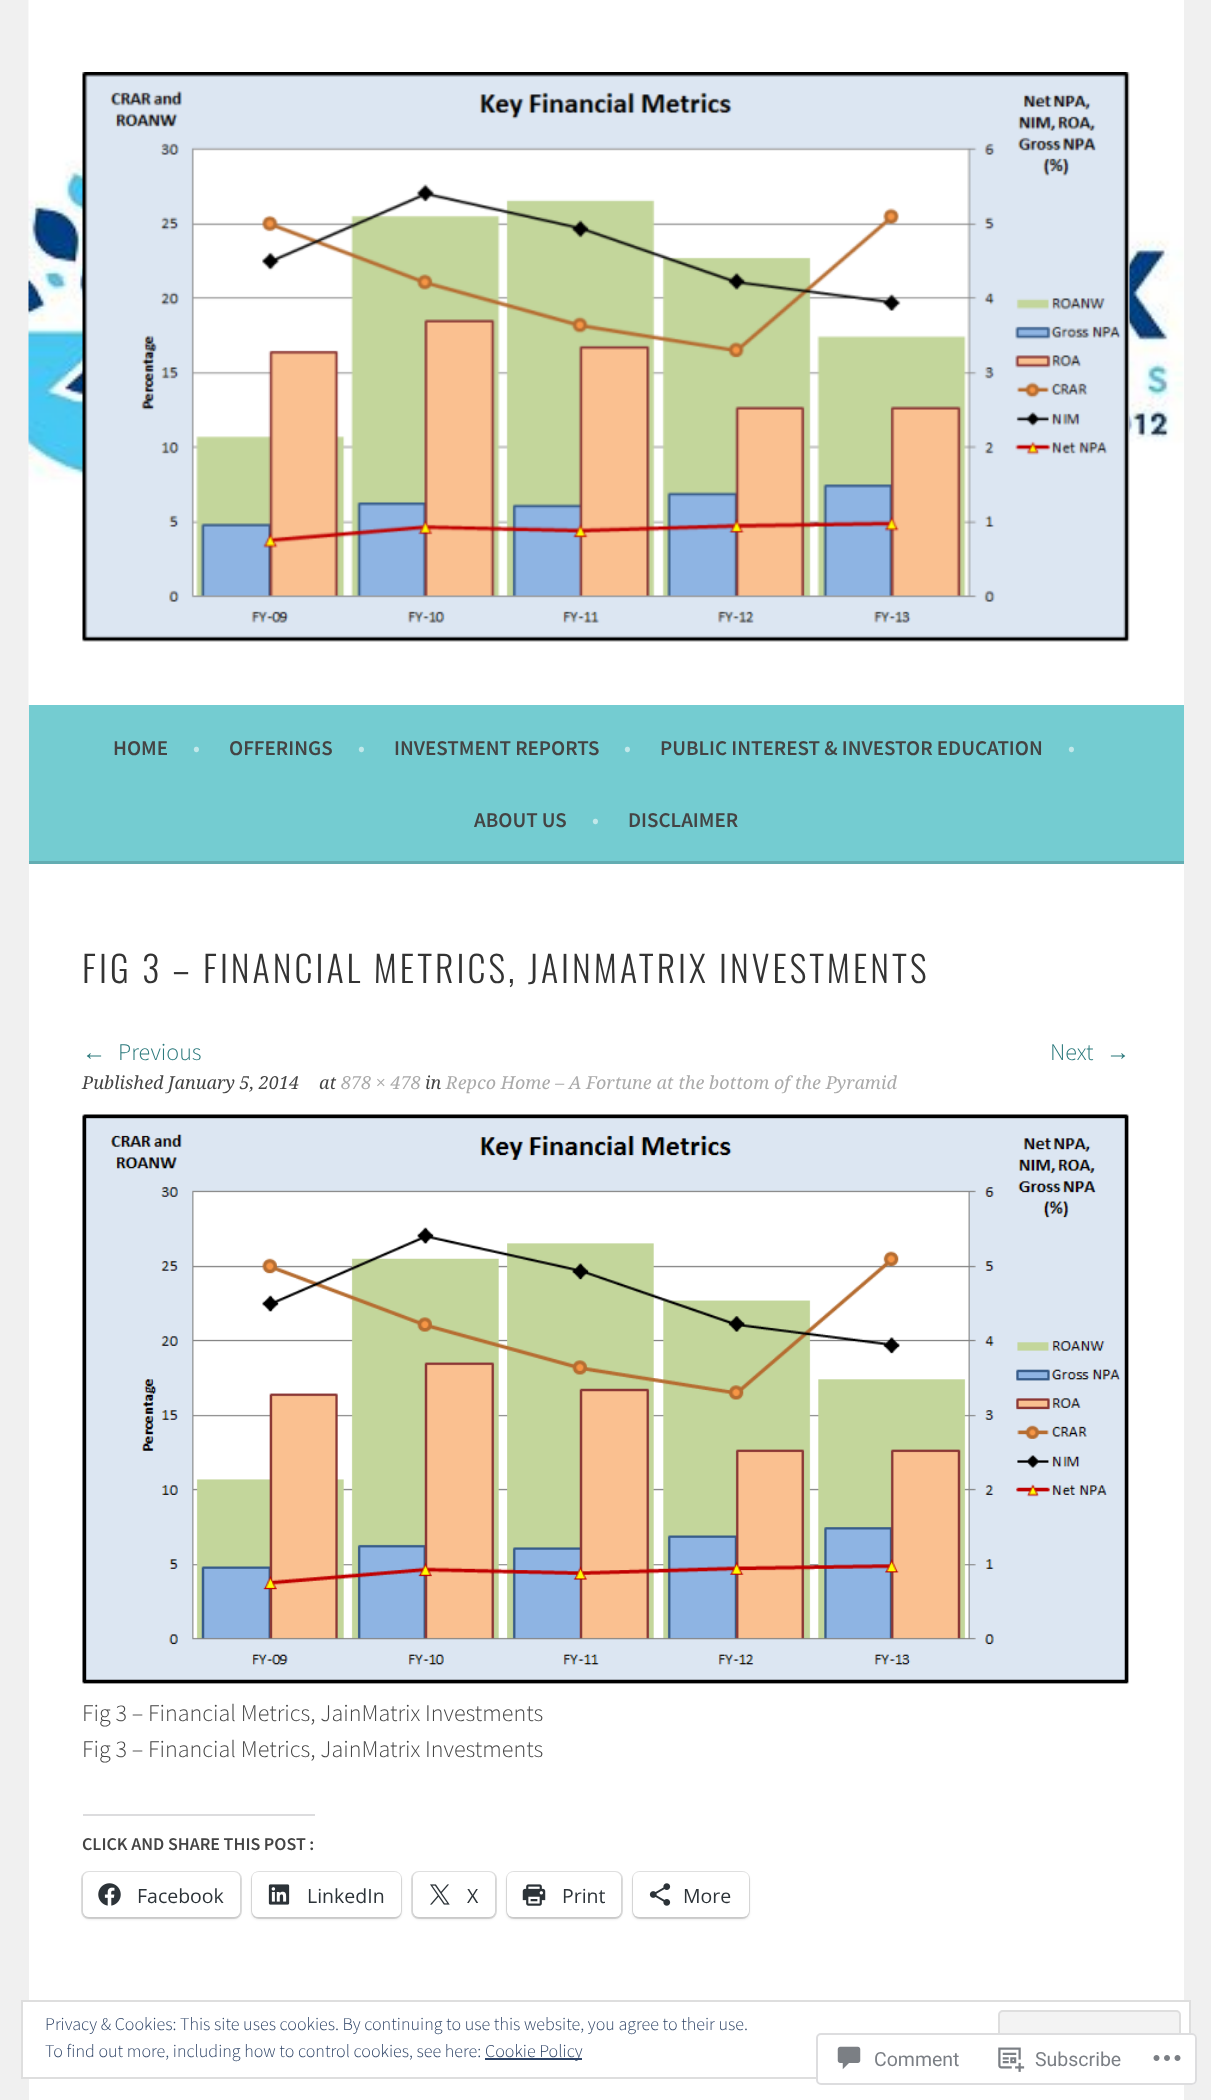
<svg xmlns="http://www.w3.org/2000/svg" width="1211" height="2100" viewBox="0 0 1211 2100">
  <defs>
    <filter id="blur1" x="-50%" y="-200%" width="200%" height="500%"><feGaussianBlur stdDeviation="1.5"/></filter>
  </defs>
  <rect width="100%" height="100%" fill="#f0f0f0"/>
  <rect x="1183" y="0" width="1" height="705" fill="#ffffff"/>
  <image x="28" y="0" width="1156" height="705" href="img1.png"/>
  <image x="82" y="72" width="1048" height="570" href="img2.png"/>
  <rect x="29" y="705" width="1155" height="156" fill="#74ccd1"/>
  <rect x="29" y="861" width="1155" height="3" fill="#63adb2"/>
  <text x="113" y="755" font-family="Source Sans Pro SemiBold" font-size="21" font-weight="600" fill="#444444">HOME</text>
  <text x="193" y="755" font-family="Source Sans Pro SemiBold" font-size="21" font-weight="600" fill="#c1e8ea">•</text>
  <text x="229" y="755" font-family="Source Sans Pro SemiBold" font-size="21" font-weight="600" fill="#444444">OFFERINGS</text>
  <text x="358" y="755" font-family="Source Sans Pro SemiBold" font-size="21" font-weight="600" fill="#c1e8ea">•</text>
  <text x="394" y="755" font-family="Source Sans Pro SemiBold" font-size="21" font-weight="600" fill="#444444">INVESTMENT REPORTS</text>
  <text x="624" y="755" font-family="Source Sans Pro SemiBold" font-size="21" font-weight="600" fill="#c1e8ea">•</text>
  <text x="660" y="755" font-family="Source Sans Pro SemiBold" font-size="21" font-weight="600" fill="#444444">PUBLIC INTEREST &amp; INVESTOR EDUCATION</text>
  <text x="1068" y="755" font-family="Source Sans Pro SemiBold" font-size="21" font-weight="600" fill="#c1e8ea">•</text>
  <text x="474" y="827" font-family="Source Sans Pro SemiBold" font-size="21" font-weight="600" fill="#444444">ABOUT US</text>
  <text x="592" y="827" font-family="Source Sans Pro SemiBold" font-size="21" font-weight="600" fill="#c1e8ea">•</text>
  <text x="628" y="827" font-family="Source Sans Pro SemiBold" font-size="21" font-weight="600" fill="#444444">DISCLAIMER</text>
  <rect x="29" y="864" width="1155" height="1236" fill="#ffffff"/>
  <text x="82" y="983" font-family="Oswald" font-size="36" font-weight="300" letter-spacing="3" fill="#333333">FIG 3 – FINANCIAL METRICS, JAINMATRIX INVESTMENTS</text>
  <text x="82" y="1060" font-family="Liberation Sans" font-size="24" fill="#2b797c">←</text>
  <text x="118" y="1060" font-family="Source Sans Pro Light" font-size="24" font-weight="300" fill="#2b797c">Previous</text>
  <text x="1050" y="1060" font-family="Source Sans Pro Light" font-size="24" font-weight="300" fill="#2b797c">Next</text>
  <text x="1106" y="1060" font-family="Liberation Sans" font-size="24" fill="#2b797c">→</text>
  <text x="82" y="1089" font-family="Droid Serif" font-size="18" font-style="italic" fill="#444444">Published January 5, 2014</text>
  <text x="319" y="1089" font-family="Droid Serif" font-size="18" font-style="italic" fill="#444444">at</text>
  <text x="341" y="1089" font-family="Droid Serif" font-size="18" font-style="italic" fill="#aaaaaa">878 × 478</text>
  <text x="425" y="1089" font-family="Droid Serif" font-size="18" font-style="italic" fill="#444444">in</text>
  <text x="446" y="1089" font-family="Droid Serif" font-size="18" font-style="italic" fill="#aaaaaa">Repco Home – A Fortune at the bottom of the Pyramid</text>
  <image x="82" y="1114" width="1047" height="570" href="img3.png"/>
  <text x="82" y="1721" font-family="Source Sans Pro Light" font-size="24" font-weight="300" fill="#444444">Fig 3 – Financial Metrics, JainMatrix Investments</text>
  <text x="82" y="1757" font-family="Source Sans Pro Light" font-size="24" font-weight="300" fill="#444444">Fig 3 – Financial Metrics, JainMatrix Investments</text>
  <rect x="83" y="1814" width="232" height="2" fill="#dcdcde"/>
  <text x="82" y="1850" font-family="Source Sans Pro SemiBold" font-size="18" font-weight="600" fill="#444444">CLICK AND SHARE THIS POST :</text>
  <rect x="82" y="1872" width="159" height="46" rx="7" fill="none" stroke="#e0e0e0" stroke-width="2"/>
  <rect x="83" y="1874" width="157" height="45" rx="6" fill="#000000" fill-opacity="0.12" filter="url(#blur1)"/>
  <rect x="83" y="1872" width="157" height="45" rx="6" fill="#ffffff"/>
  <image x="98" y="1883" width="23" height="23" href="img4.png"/>
  <text x="137" y="1903" font-family="Open Sans" font-size="19.5" fill="#2c3338">Facebook</text>
  <rect x="252" y="1872" width="149" height="46" rx="7" fill="none" stroke="#e0e0e0" stroke-width="2"/>
  <rect x="252" y="1874" width="149" height="45" rx="6" fill="#000000" fill-opacity="0.12" filter="url(#blur1)"/>
  <rect x="252" y="1872" width="149" height="45" rx="6" fill="#ffffff"/>
  <image x="268" y="1884" width="22" height="21" href="img5.png"/>
  <text x="307" y="1903" font-family="Open Sans" font-size="19.5" fill="#2c3338">LinkedIn</text>
  <rect x="412" y="1872" width="84" height="46" rx="7" fill="none" stroke="#e0e0e0" stroke-width="2"/>
  <rect x="413" y="1874" width="82" height="45" rx="6" fill="#000000" fill-opacity="0.12" filter="url(#blur1)"/>
  <rect x="413" y="1872" width="82" height="45" rx="6" fill="#ffffff"/>
  <image x="430" y="1884" width="20" height="21" href="img6.png"/>
  <text x="467" y="1903" font-family="Open Sans" font-size="19.5" fill="#2c3338">X</text>
  <rect x="507" y="1872" width="115" height="46" rx="7" fill="none" stroke="#e0e0e0" stroke-width="2"/>
  <rect x="507" y="1874" width="114" height="45" rx="6" fill="#000000" fill-opacity="0.12" filter="url(#blur1)"/>
  <rect x="507" y="1872" width="114" height="45" rx="6" fill="#ffffff"/>
  <image x="522" y="1884" width="24" height="22" href="img7.png"/>
  <text x="562" y="1903" font-family="Open Sans" font-size="19.5" fill="#2c3338">Print</text>
  <rect x="633" y="1872" width="116" height="46" rx="7" fill="none" stroke="#e0e0e0" stroke-width="2"/>
  <rect x="633" y="1874" width="116" height="45" rx="6" fill="#000000" fill-opacity="0.12" filter="url(#blur1)"/>
  <rect x="633" y="1872" width="116" height="45" rx="6" fill="#ffffff"/>
  <image x="649" y="1883" width="22" height="23" href="img8.png"/>
  <text x="683" y="1903" font-family="Open Sans" font-size="19.5" fill="#2c3338">More</text>
  <rect x="22" y="2001" width="1168" height="77" fill="#ffffff" stroke="#dedede" stroke-width="2"/>
  <text x="45" y="2030" font-family="Source Sans Pro Light" font-size="18" font-weight="300" fill="#2e4467">Privacy &amp; Cookies: This site uses cookies. By continuing to use this website, you agree to their use.</text>
  <rect x="998" y="2010" width="183" height="59" rx="5" fill="#f3f3f3"/>
  <path d="M999 2061V2064C999 2066 1000 2067 1002 2067H1176C1178 2067 1179 2066 1179 2064V2061C1179 2063 1178 2064 1176 2064H1001L1000 2063Z" fill="#dbdbdb"/>
  <rect x="999" y="2011" width="181" height="57" rx="4" fill="none" stroke="#dedede" stroke-width="2"/>
  <text x="45" y="2057" font-family="Source Sans Pro Light" font-size="18" font-weight="300" fill="#2e4467">To find out more, including how to control cookies, see here:</text>
  <rect x="485" y="2058" width="97" height="2" fill="#2e4467"/>
  <text x="485" y="2057" font-family="Source Sans Pro Light" font-size="18" font-weight="300" fill="#2e4467">Cookie Policy</text>
  <rect x="816" y="2033" width="381" height="52" rx="5" fill="#ffffff" fill-opacity="0.98"/>
  <rect x="817" y="2034" width="379" height="50" rx="4" fill="none" stroke="#dcdcde" stroke-opacity="0.98" stroke-width="2"/>
  <image x="837" y="2046" width="24" height="24" href="img9.png"/>
  <text x="874" y="2066" font-family="Roboto" font-size="19.5" fill="#7b7f85">Comment</text>
  <image x="998" y="2047" width="27" height="25" href="img10.png"/>
  <text x="1035" y="2066" font-family="Roboto" font-size="19.5" fill="#7b7f85">Subscribe</text>
  <image x="1153" y="2055" width="28" height="6" href="img11.png"/>
</svg>
